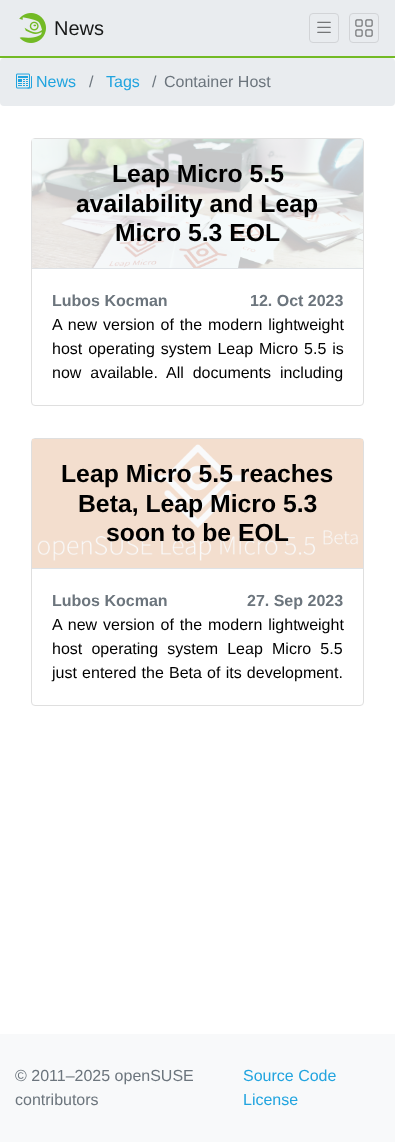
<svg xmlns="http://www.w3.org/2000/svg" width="395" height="1142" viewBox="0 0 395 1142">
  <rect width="100%" height="100%" fill="#ffffff"/>
  <rect x="0" y="0" width="395" height="56" fill="#e9ecef"/>
  <rect x="0" y="56" width="395" height="2" fill="#73ba25"/>
  <image x="19" y="13" width="27" height="30" href="img1.png"/>
  <text x="54" y="35" font-family="Liberation Sans" font-size="20" fill="#171818">News</text>
  <rect x="309.5" y="13.5" width="29" height="29" rx="3.5" fill="none" stroke="#d2d4d7"/>
  <image x="317" y="21" width="14" height="12" href="img2.png"/>
  <rect x="349.5" y="13.5" width="29" height="29" rx="3.5" fill="none" stroke="#d2d4d7"/>
  <image x="355" y="19" width="18" height="18" href="img3.png"/>
  <rect x="0" y="58" width="395" height="48" rx="4" fill="#e9ecef"/>
  <image x="16" y="73" width="16" height="16" href="img4.png"/>
  <text x="36" y="87" font-family="Liberation Sans" font-size="16" fill="#21a4df">News</text>
  <text x="89" y="87" font-family="Liberation Sans" font-size="16" fill="#6c757d">/</text>
  <text x="106" y="87" font-family="Liberation Sans" font-size="16" fill="#21a4df">Tags</text>
  <text x="152" y="87" font-family="Liberation Sans" font-size="16" fill="#6c757d">/</text>
  <text x="164" y="87" font-family="Liberation Sans" font-size="16" fill="#6c757d">Container Host</text>
  <rect x="31.5" y="138.5" width="332" height="267" rx="3.5" fill="none" stroke="#dfdfdf"/>
  <image x="32" y="139" width="331" height="129" href="img5.png"/>
  <rect x="32" y="268" width="331" height="1" fill="#dee2e6"/>
  <text x="112" y="182" font-family="Liberation Sans" font-size="24.75" font-weight="bold" fill="#000000">Leap Micro 5.5</text>
  <text x="76" y="212" font-family="Liberation Sans" font-size="24.75" font-weight="bold" fill="#000000">availability and Leap</text>
  <text x="115" y="241" font-family="Liberation Sans" font-size="24.75" font-weight="bold" fill="#000000">Micro 5.3 EOL</text>
  <text x="52" y="306" font-family="Liberation Sans" font-size="16" font-weight="bold" fill="#6c757d">Lubos Kocman</text>
  <text x="250" y="306" font-family="Liberation Sans" font-size="16" font-weight="bold" fill="#6c757d">12. Oct 2023</text>
  <text x="52" y="330" word-spacing="1.5" font-family="Liberation Sans" font-size="16" fill="#000000">A new version of the modern lightweight</text>
  <text x="52" y="354" word-spacing="1.5" font-family="Liberation Sans" font-size="16" fill="#000000">host operating system Leap Micro 5.5 is</text>
  <text x="52" y="378" word-spacing="4.5" font-family="Liberation Sans" font-size="16" fill="#000000">now available. All documents including</text>
  <rect x="31.5" y="438.5" width="332" height="267" rx="3.5" fill="none" stroke="#dfdfdf"/>
  <image x="32" y="439" width="331" height="129" href="img6.png"/>
  <rect x="32" y="568" width="331" height="1" fill="#dee2e6"/>
  <text x="61" y="482" font-family="Liberation Sans" font-size="24.75" font-weight="bold" fill="#000000">Leap Micro 5.5 reaches</text>
  <text x="78" y="512" font-family="Liberation Sans" font-size="24.75" font-weight="bold" fill="#000000">Beta, Leap Micro 5.3</text>
  <text x="106" y="541" font-family="Liberation Sans" font-size="24.75" font-weight="bold" fill="#000000">soon to be EOL</text>
  <text x="52" y="606" font-family="Liberation Sans" font-size="16" font-weight="bold" fill="#6c757d">Lubos Kocman</text>
  <text x="247" y="606" font-family="Liberation Sans" font-size="16" font-weight="bold" fill="#6c757d">27. Sep 2023</text>
  <text x="52" y="630" word-spacing="1.5" font-family="Liberation Sans" font-size="16" fill="#000000">A new version of the modern lightweight</text>
  <text x="52" y="654" word-spacing="4.75" font-family="Liberation Sans" font-size="16" fill="#000000">host operating system Leap Micro 5.5</text>
  <text x="52" y="678" word-spacing="0.75" font-family="Liberation Sans" font-size="16" fill="#000000">just entered the Beta of its development.</text>
  <rect x="0" y="1034" width="395" height="108" fill="#f8f9fa"/>
  <text x="15" y="1081" font-family="Liberation Sans" font-size="16" fill="#6c757d">© 2011–2025 openSUSE</text>
  <text x="15" y="1105" font-family="Liberation Sans" font-size="16" fill="#6c757d">contributors</text>
  <text x="243" y="1081" font-family="Liberation Sans" font-size="16" fill="#21a4df">Source Code</text>
  <text x="243" y="1105" font-family="Liberation Sans" font-size="16" fill="#21a4df">License</text>
</svg>
